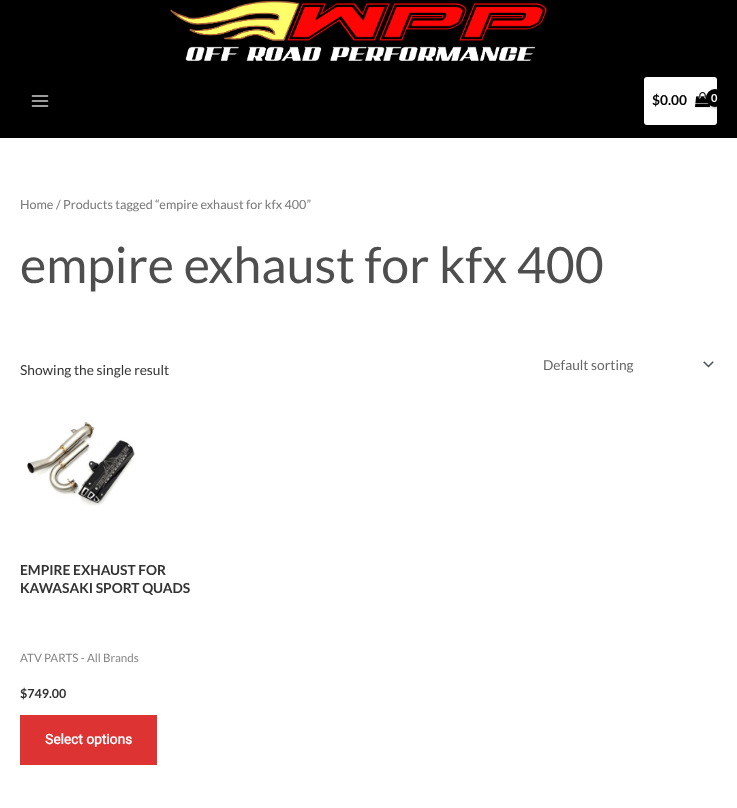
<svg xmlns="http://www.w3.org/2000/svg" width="737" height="808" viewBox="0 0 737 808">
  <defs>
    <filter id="blur1" x="-50%" y="-200%" width="200%" height="500%"><feGaussianBlur stdDeviation="1.5"/></filter>
  </defs>
  <rect width="100%" height="100%" fill="#ffffff"/>
  <rect x="0" y="0" width="737" height="138" fill="#000000"/>
  <image x="170" y="0" width="377" height="61" href="img1.png"/>
  <image x="31" y="95" width="18" height="12" href="img2.png"/>
  <rect x="644" y="77" width="73" height="48" rx="3" fill="#ffffff"/>
  <text x="652" y="105" font-family="Lato" font-size="13.75" font-weight="bold" fill="#000000">$0.00</text>
  <image x="695" y="92" width="15" height="16" href="img3.png"/>
  <rect x="707" y="90" width="18" height="18" rx="9" fill="#000000" fill-opacity="0.3" filter="url(#blur1)"/>
  <circle cx="715" cy="98" r="9" fill="#000000"/>
  <text x="711" y="102" font-family="Lato" font-size="11" font-weight="bold" fill="#ffffff">0</text>
  <text x="20" y="209" font-family="Lato" font-size="12.6" fill="#777777">Home / Products tagged “empire exhaust for kfx 400”</text>
  <text x="20" y="283" font-family="Lato" font-size="50" fill="#4e4e4e">empire exhaust for kfx 400</text>
  <text x="20" y="375" font-family="Lato" font-size="13.75" fill="#333333">Showing the single result</text>
  <image x="703" y="361" width="11" height="7" href="img4.png"/>
  <text x="543" y="370" font-family="Lato" font-size="13.75" fill="#666666">Default sorting</text>
  <image x="27" y="420" width="108" height="86" href="img5.png"/>
  <text x="20" y="575" font-family="Lato" font-size="13.75" font-weight="bold" fill="#333333">EMPIRE EXHAUST FOR</text>
  <text x="20" y="593" font-family="Lato" font-size="13.75" font-weight="bold" fill="#333333">KAWASAKI SPORT QUADS</text>
  <text x="20" y="662" font-family="Lato" font-size="11.6" fill="#858585">ATV PARTS - All Brands</text>
  <text x="20" y="698" font-family="Lato" font-size="12.5" font-weight="bold" fill="#333333">$749.00</text>
  <rect x="20" y="715" width="137" height="50" fill="#dd3333"/>
  <text x="45" y="744" font-family="Roboto" font-size="13.75" font-weight="bold" fill="#ffffff">Select options</text>
</svg>
